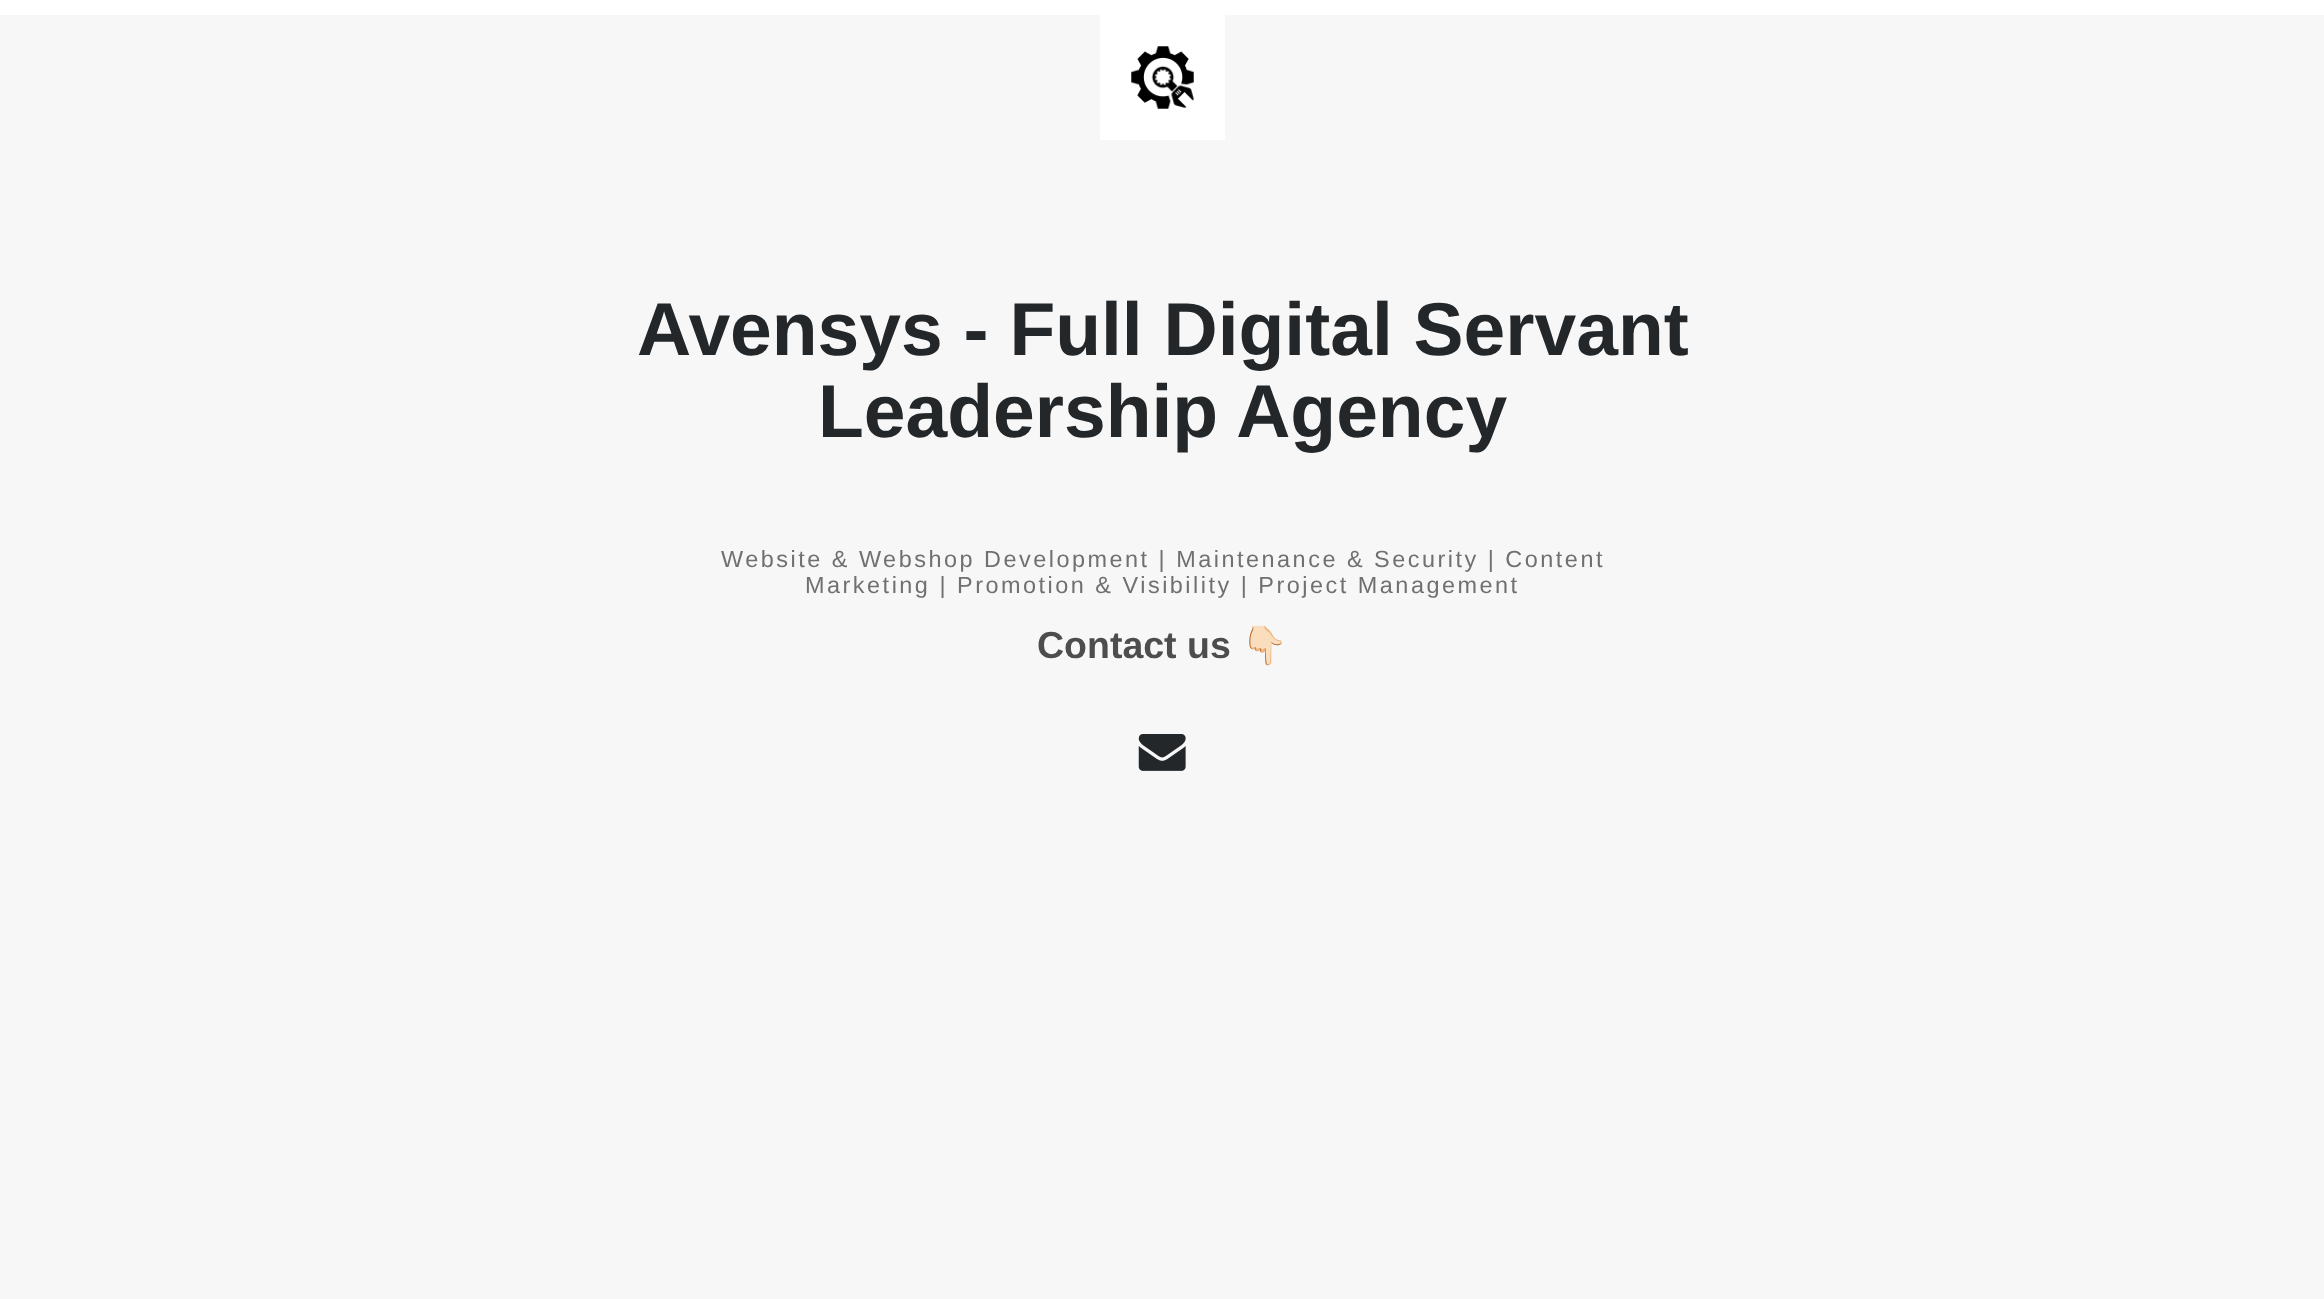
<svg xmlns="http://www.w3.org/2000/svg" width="2324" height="1299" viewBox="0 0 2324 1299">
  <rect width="100%" height="100%" fill="#f7f7f7"/>
  <rect x="0" y="0" width="2324" height="15" fill="#ffffff"/>
  <rect x="1100" y="15" width="125" height="125" fill="#ffffff"/>
  <image x="1131" y="46" width="63" height="63" href="img1.png"/>
  <text x="637" y="355" font-family="Liberation Sans" font-size="75" font-weight="bold" fill="#23272a">Avensys - Full Digital Servant</text>
  <text x="818" y="437" font-family="Liberation Sans" font-size="75" font-weight="bold" fill="#23272a">Leadership Agency</text>
  <text x="721" y="567" font-family="Liberation Sans" font-size="23.45" letter-spacing="2.5" fill="#707070">Website &amp; Webshop Development | Maintenance &amp; Security | Content</text>
  <text x="805" y="593" font-family="Liberation Sans" font-size="23.45" letter-spacing="2.5" fill="#707070">Marketing | Promotion &amp; Visibility | Project Management</text>
  <text x="1037" y="658" font-family="Liberation Sans" font-size="37.5" font-weight="bold" fill="#4d4d4d">Contact us</text>
  <text x="1241" y="658" font-family="Noto Color Emoji" font-size="37.5" font-weight="bold" fill="#4d4d4d">👇🏻</text>
  <image x="1138" y="734" width="48" height="37" href="img2.png"/>
</svg>
